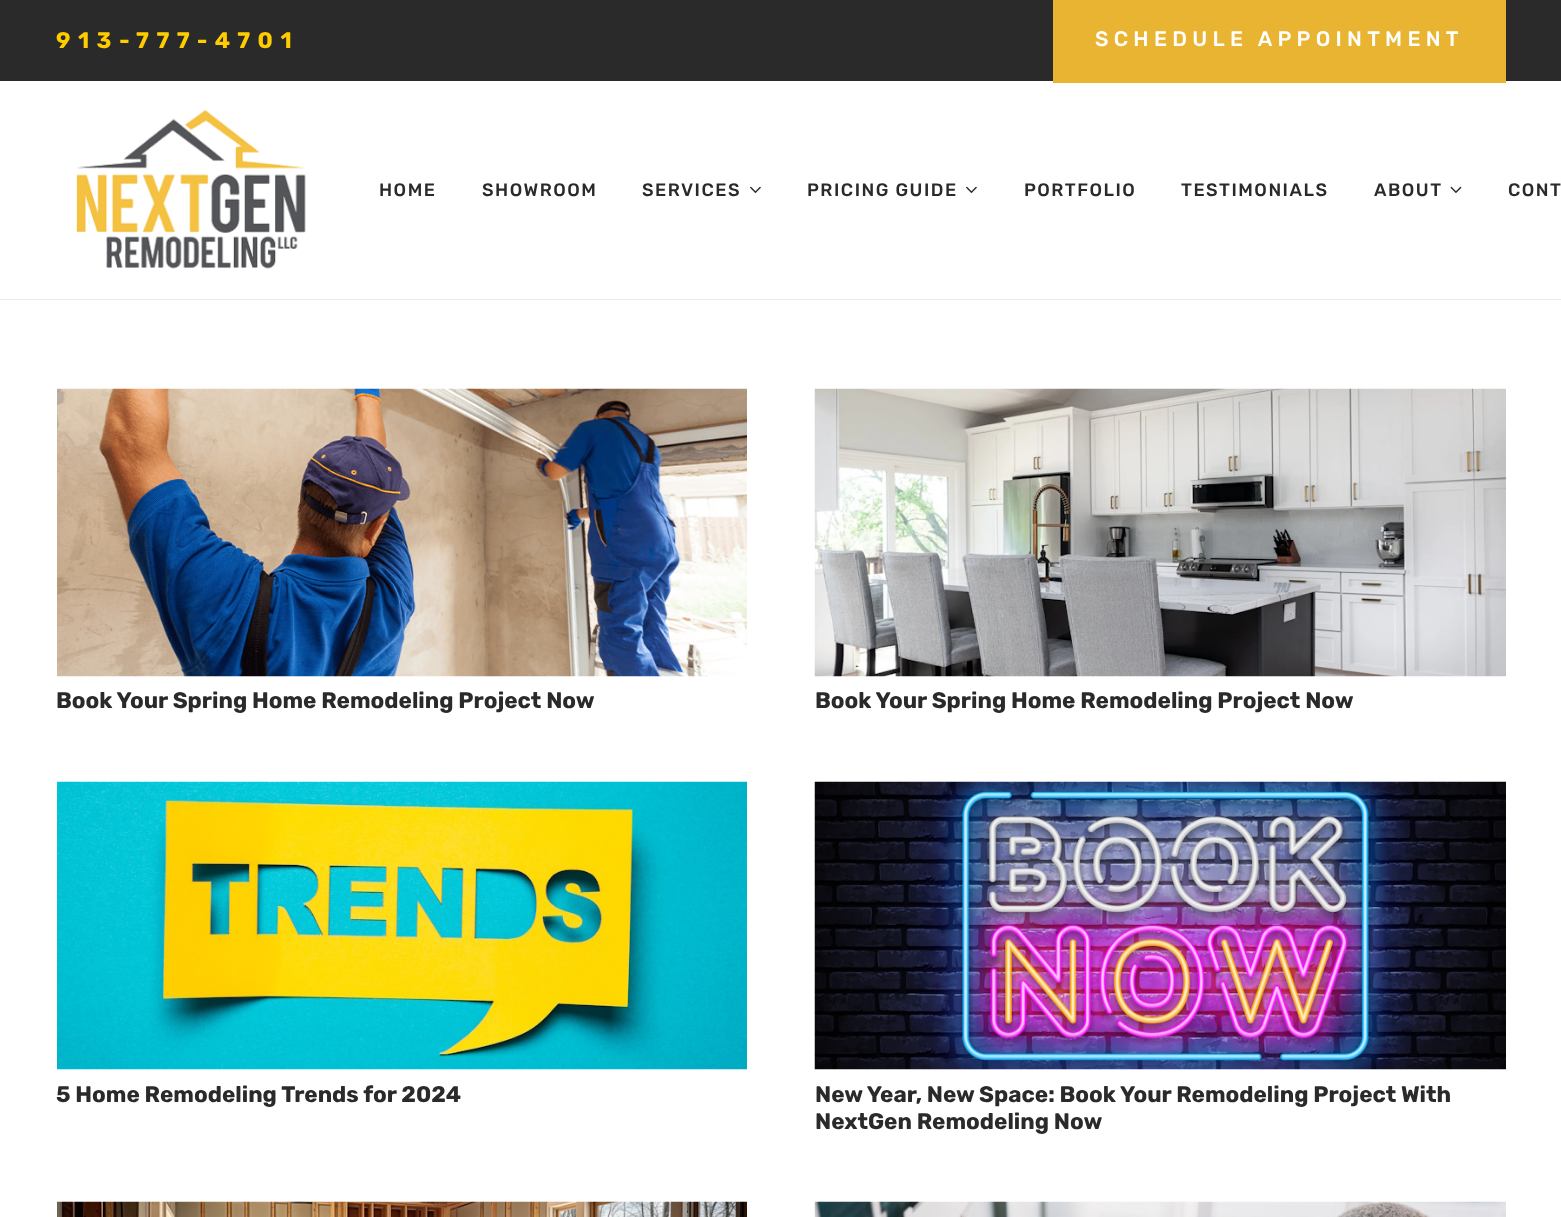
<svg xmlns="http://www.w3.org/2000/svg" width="1561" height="1217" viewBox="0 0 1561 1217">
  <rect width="100%" height="100%" fill="#ffffff"/>
  <rect x="0" y="0" width="1561" height="81" fill="#2a2a2a"/>
  <text x="56" y="48" font-family="Rubik" font-size="22.5" font-weight="300" letter-spacing="7.5" fill="#ffcc00">913-777-4701</text>
  <rect x="1053" y="0" width="453" height="83" fill="#e9b431"/>
  <text x="1095" y="46" font-family="'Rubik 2'" font-size="21" font-weight="300" letter-spacing="5.25" fill="#ffffff">SCHEDULE APPOINTMENT</text>
  <path d="M0 298V300H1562V83V298Z" fill="#ebebeb"/>
  <rect x="0" y="298" width="1561" height="1" fill="#ffffff"/>
  <image x="76" y="109" width="230" height="160" href="img1.png"/>
  <text x="379" y="196" font-family="'Rubik 2'" font-size="18" font-weight="300" letter-spacing="1.5" fill="#2a2a2a">HOME</text>
  <text x="482" y="196" font-family="'Rubik 2'" font-size="18" font-weight="300" letter-spacing="1.5" fill="#2a2a2a">SHOWROOM</text>
  <text x="642" y="196" font-family="'Rubik 2'" font-size="18" font-weight="300" letter-spacing="1.5" fill="#2a2a2a">SERVICES</text>
  <image x="750" y="186" width="11" height="7" href="img2.png"/>
  <text x="807" y="196" font-family="'Rubik 2'" font-size="18" font-weight="300" letter-spacing="1.5" fill="#2a2a2a">PRICING GUIDE</text>
  <image x="966" y="186" width="11" height="7" href="img2.png"/>
  <text x="1024" y="196" font-family="'Rubik 2'" font-size="18" font-weight="300" letter-spacing="1.5" fill="#2a2a2a">PORTFOLIO</text>
  <text x="1181" y="196" font-family="'Rubik 2'" font-size="18" font-weight="300" letter-spacing="1.5" fill="#2a2a2a">TESTIMONIALS</text>
  <text x="1374" y="196" font-family="'Rubik 2'" font-size="18" font-weight="300" letter-spacing="1.5" fill="#2a2a2a">ABOUT</text>
  <image x="1450" y="186" width="12" height="7" href="img3.png"/>
  <text x="1508" y="196" font-family="'Rubik 2'" font-size="18" font-weight="300" letter-spacing="1.5" fill="#2a2a2a">CONT</text>
  <image x="57" y="388" width="690" height="289" href="img4.png"/>
  <text x="56" y="708" font-family="Rubik" font-size="22.5" font-weight="300" fill="#2a2a2a">Book Your Spring Home Remodeling Project Now</text>
  <image x="814" y="388" width="692" height="289" href="img5.png"/>
  <text x="815" y="708" font-family="Rubik" font-size="22.5" font-weight="300" fill="#2a2a2a">Book Your Spring Home Remodeling Project Now</text>
  <image x="57" y="781" width="690" height="289" href="img6.png"/>
  <text x="56" y="1102" font-family="Rubik" font-size="22.5" font-weight="300" fill="#2a2a2a">5 Home Remodeling Trends for 2024</text>
  <image x="814" y="781" width="692" height="289" href="img7.png"/>
  <text x="815" y="1102" font-family="Rubik" font-size="22.5" font-weight="300" fill="#2a2a2a">New Year, New Space: Book Your Remodeling Project With</text>
  <text x="815" y="1129" font-family="Rubik" font-size="22.5" font-weight="300" fill="#2a2a2a">NextGen Remodeling Now</text>
  <image x="57" y="1201" width="690" height="16" href="img8.png"/>
  <image x="814" y="1201" width="692" height="16" href="img9.png"/>
</svg>
